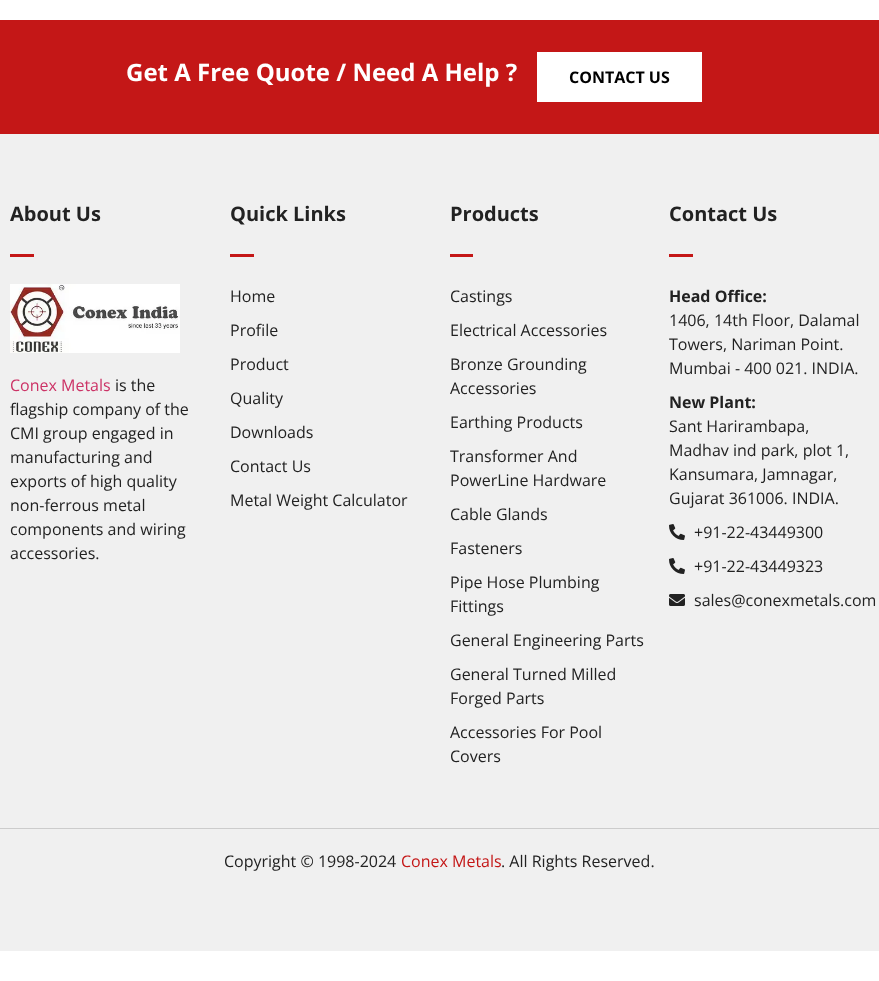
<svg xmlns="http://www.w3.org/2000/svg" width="879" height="981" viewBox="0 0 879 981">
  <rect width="100%" height="100%" fill="#ffffff"/>
  <rect x="0" y="20" width="879" height="114" fill="#c41717"/>
  <text x="126" y="81" font-family="Open Sans" font-size="24" font-weight="bold" fill="#ffffff">Get A Free Quote / Need A Help ?</text>
  <rect x="537" y="52" width="165" height="50" fill="#ffffff"/>
  <text x="569" y="83" font-family="Open Sans" font-size="16" font-weight="bold" fill="#000000">CONTACT US</text>
  <rect x="0" y="134" width="879" height="694" fill="#f0f0f0"/>
  <rect x="0" y="828" width="879" height="1" fill="#cccccc"/>
  <text x="10" y="221" font-family="Open Sans" font-size="20" font-weight="bold" fill="#222222">About Us</text>
  <rect x="10" y="254" width="24" height="3" fill="#c41717"/>
  <image x="10" y="284" width="170" height="69" href="img1.png"/>
  <text x="10" y="391" font-family="Open Sans" font-size="16" fill="#cc3366">Conex Metals</text>
  <text x="115" y="391" font-family="Open Sans" font-size="16" fill="#222222">is the</text>
  <text x="10" y="415" font-family="Open Sans" font-size="16" fill="#222222">flagship company of the</text>
  <text x="10" y="439" font-family="Open Sans" font-size="16" fill="#222222">CMI group engaged in</text>
  <text x="10" y="463" font-family="Open Sans" font-size="16" fill="#222222">manufacturing and</text>
  <text x="10" y="487" font-family="Open Sans" font-size="16" fill="#222222">exports of high quality</text>
  <text x="10" y="511" font-family="Open Sans" font-size="16" fill="#222222">non-ferrous metal</text>
  <text x="10" y="535" font-family="Open Sans" font-size="16" fill="#222222">components and wiring</text>
  <text x="10" y="559" font-family="Open Sans" font-size="16" fill="#222222">accessories.</text>
  <text x="230" y="221" font-family="Open Sans" font-size="20" font-weight="bold" fill="#222222">Quick Links</text>
  <rect x="230" y="254" width="24" height="3" fill="#c41717"/>
  <text x="230" y="302" font-family="Open Sans" font-size="16" fill="#222222">Home</text>
  <text x="230" y="336" font-family="Open Sans" font-size="16" fill="#222222">Profile</text>
  <text x="230" y="370" font-family="Open Sans" font-size="16" fill="#222222">Product</text>
  <text x="230" y="404" font-family="Open Sans" font-size="16" fill="#222222">Quality</text>
  <text x="230" y="438" font-family="Open Sans" font-size="16" fill="#222222">Downloads</text>
  <text x="230" y="472" font-family="Open Sans" font-size="16" fill="#222222">Contact Us</text>
  <text x="230" y="506" font-family="Open Sans" font-size="16" fill="#222222">Metal Weight Calculator</text>
  <text x="450" y="221" font-family="Open Sans" font-size="20" font-weight="bold" fill="#222222">Products</text>
  <rect x="450" y="254" width="23" height="3" fill="#c41717"/>
  <text x="450" y="302" font-family="Open Sans" font-size="16" fill="#222222">Castings</text>
  <text x="450" y="336" font-family="Open Sans" font-size="16" fill="#222222">Electrical Accessories</text>
  <text x="450" y="370" font-family="Open Sans" font-size="16" fill="#222222">Bronze Grounding</text>
  <text x="450" y="394" font-family="Open Sans" font-size="16" fill="#222222">Accessories</text>
  <text x="450" y="428" font-family="Open Sans" font-size="16" fill="#222222">Earthing Products</text>
  <text x="450" y="462" font-family="Open Sans" font-size="16" fill="#222222">Transformer And</text>
  <text x="450" y="486" font-family="Open Sans" font-size="16" fill="#222222">PowerLine Hardware</text>
  <text x="450" y="520" font-family="Open Sans" font-size="16" fill="#222222">Cable Glands</text>
  <text x="450" y="554" font-family="Open Sans" font-size="16" fill="#222222">Fasteners</text>
  <text x="450" y="588" font-family="Open Sans" font-size="16" fill="#222222">Pipe Hose Plumbing</text>
  <text x="450" y="612" font-family="Open Sans" font-size="16" fill="#222222">Fittings</text>
  <text x="450" y="646" font-family="Open Sans" font-size="16" fill="#222222">General Engineering Parts</text>
  <text x="450" y="680" font-family="Open Sans" font-size="16" fill="#222222">General Turned Milled</text>
  <text x="450" y="704" font-family="Open Sans" font-size="16" fill="#222222">Forged Parts</text>
  <text x="450" y="738" font-family="Open Sans" font-size="16" fill="#222222">Accessories For Pool</text>
  <text x="450" y="762" font-family="Open Sans" font-size="16" fill="#222222">Covers</text>
  <text x="669" y="221" font-family="Open Sans" font-size="20" font-weight="bold" fill="#222222">Contact Us</text>
  <rect x="669" y="254" width="24" height="3" fill="#c41717"/>
  <text x="669" y="302" font-family="Open Sans" font-size="16" font-weight="bold" fill="#222222">Head Office:</text>
  <text x="669" y="326" font-family="Open Sans" font-size="16" fill="#222222">1406, 14th Floor, Dalamal</text>
  <text x="669" y="350" font-family="Open Sans" font-size="16" fill="#222222">Towers, Nariman Point.</text>
  <text x="669" y="374" font-family="Open Sans" font-size="16" fill="#222222">Mumbai - 400 021. INDIA.</text>
  <text x="669" y="408" font-family="Open Sans" font-size="16" font-weight="bold" fill="#222222">New Plant:</text>
  <text x="669" y="432" font-family="Open Sans" font-size="16" fill="#222222">Sant Harirambapa,</text>
  <text x="669" y="456" font-family="Open Sans" font-size="16" fill="#222222">Madhav ind park, plot 1,</text>
  <text x="669" y="480" font-family="Open Sans" font-size="16" fill="#222222">Kansumara, Jamnagar,</text>
  <text x="669" y="504" font-family="Open Sans" font-size="16" fill="#222222">Gujarat 361006. INDIA.</text>
  <image x="669" y="524" width="16" height="16" href="img2.png"/>
  <text x="694" y="538" font-family="Open Sans" font-size="16" fill="#222222">+91-22-43449300</text>
  <image x="669" y="558" width="16" height="16" href="img2.png"/>
  <text x="694" y="572" font-family="Open Sans" font-size="16" fill="#222222">+91-22-43449323</text>
  <image x="669" y="594" width="16" height="12" href="img3.png"/>
  <text x="694" y="606" font-family="Open Sans" font-size="16" fill="#222222">sales@conexmetals.com</text>
  <rect x="0" y="829" width="879" height="122" fill="#f0f0f0"/>
  <text x="224" y="867" font-family="Open Sans" font-size="16" fill="#222222">Copyright © 1998-2024</text>
  <text x="401" y="867" font-family="Open Sans" font-size="16" fill="#c41717">Conex Metals</text>
  <text x="501" y="867" font-family="Open Sans" font-size="16" fill="#222222">. All Rights Reserved.</text>
</svg>
